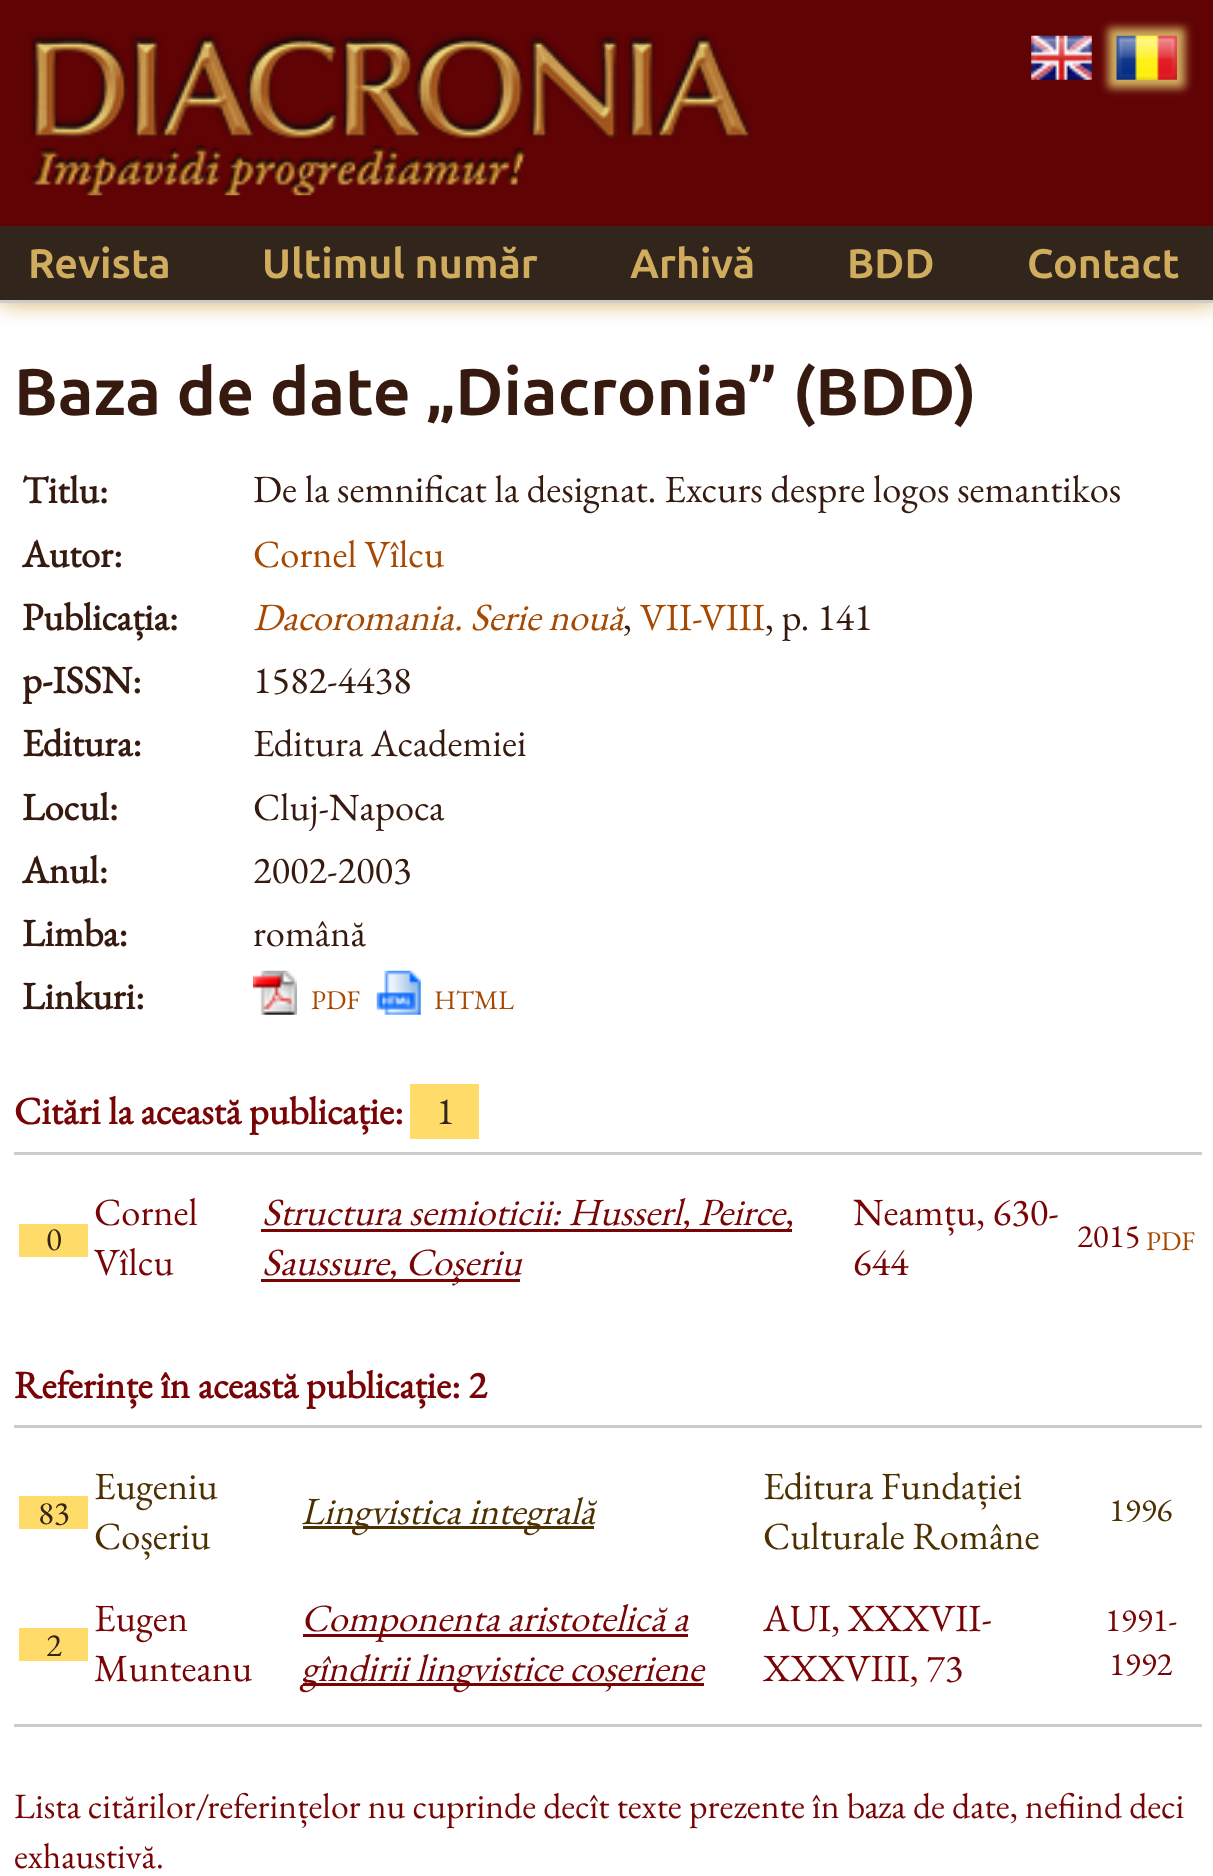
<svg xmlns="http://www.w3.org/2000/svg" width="1213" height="1876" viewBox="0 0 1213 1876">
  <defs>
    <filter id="blur1" x="-50%" y="-200%" width="200%" height="500%"><feGaussianBlur stdDeviation="11"/></filter>
    <filter id="blur2" x="-50%" y="-200%" width="200%" height="500%"><feGaussianBlur stdDeviation="4"/></filter>
  </defs>
  <rect width="100%" height="100%" fill="#ffffff"/>
  <rect x="0" y="226" width="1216" height="77" fill="#d0ac5f" filter="url(#blur1)"/>
  <rect x="0" y="0" width="1213" height="226" fill="#600305"/>
  <image x="29" y="32" width="722" height="164" href="img1.png"/>
  <rect x="0" y="226" width="1213" height="74" fill="#32251c"/>
  <rect x="0" y="300" width="1213" height="3" fill="#cccccc"/>
  <image x="1031" y="35" width="61" height="45" href="img2.png"/>
  <rect x="1108" y="28" width="77" height="60" fill="#d0ac5f" filter="url(#blur2)"/>
  <image x="1116" y="35" width="61" height="45" href="img3.png"/>
  <text x="28" y="278" font-family="Ubuntu" font-size="41.25" font-weight="bold" fill="#d0ac5f">Revista</text>
  <text x="262" y="278" font-family="Ubuntu" font-size="41.25" font-weight="bold" fill="#d0ac5f">Ultimul număr</text>
  <text x="630" y="278" font-family="Ubuntu" font-size="41.25" font-weight="bold" fill="#d0ac5f">Arhivă</text>
  <text x="847" y="278" font-family="Ubuntu" font-size="41.25" font-weight="bold" fill="#d0ac5f">BDD</text>
  <text x="1027" y="278" font-family="Ubuntu" font-size="41.25" font-weight="bold" fill="#d0ac5f">Contact</text>
  <text x="14" y="415" font-family="Ubuntu" font-size="66" font-weight="bold" fill="#361a0f">Baza de date „Diacronia” (BDD)</text>
  <text x="22" y="503" font-family="EB Garamond" font-size="38.5" font-weight="bold" fill="#361a0f">Titlu:</text>
  <text x="253" y="502" font-family="EB Garamond" font-size="38.5" fill="#361a0f">De la semnificat la designat. Excurs despre logos semantikos</text>
  <text x="22" y="567" font-family="EB Garamond" font-size="38.5" font-weight="bold" fill="#361a0f">Autor:</text>
  <text x="253" y="567" font-family="EB Garamond" font-size="38.5" fill="#a64902">Cornel Vîlcu</text>
  <text x="22" y="630" font-family="EB Garamond" font-size="38.5" font-weight="bold" fill="#361a0f">Publicația:</text>
  <text x="253" y="630" font-family="EB Garamond" font-size="38.5" font-style="italic" fill="#a64902">Dacoromania. Serie nouă</text>
  <text x="623" y="630" font-family="EB Garamond" font-size="38.5" fill="#361a0f">,</text>
  <text x="640" y="630" font-family="EB Garamond" font-size="38.5" fill="#a64902">VII-VIII</text>
  <text x="765" y="630" font-family="EB Garamond" font-size="38.5" fill="#361a0f">, p. 141</text>
  <text x="22" y="693" font-family="EB Garamond" font-size="38.5" font-weight="bold" fill="#361a0f">p-ISSN:</text>
  <text x="253" y="693" font-family="EB Garamond" font-size="38.5" fill="#361a0f">1582-4438</text>
  <text x="22" y="756" font-family="EB Garamond" font-size="38.5" font-weight="bold" fill="#361a0f">Editura:</text>
  <text x="253" y="756" font-family="EB Garamond" font-size="38.5" fill="#361a0f">Editura Academiei</text>
  <text x="22" y="820" font-family="EB Garamond" font-size="38.5" font-weight="bold" fill="#361a0f">Locul:</text>
  <text x="253" y="820" font-family="EB Garamond" font-size="38.5" fill="#361a0f">Cluj-Napoca</text>
  <text x="22" y="883" font-family="EB Garamond" font-size="38.5" font-weight="bold" fill="#361a0f">Anul:</text>
  <text x="253" y="883" font-family="EB Garamond" font-size="38.5" fill="#361a0f">2002-2003</text>
  <text x="22" y="946" font-family="EB Garamond" font-size="38.5" font-weight="bold" fill="#361a0f">Limba:</text>
  <text x="253" y="946" font-family="EB Garamond" font-size="38.5" fill="#361a0f">română</text>
  <text x="22" y="1009" font-family="EB Garamond" font-size="38.5" font-weight="bold" fill="#361a0f">Linkuri:</text>
  <image x="253" y="970" width="44" height="45" href="img4.png"/>
  <text x="311" y="1009" font-family="EB Garamond" font-size="27" fill="#a64902">PDF</text>
  <image x="376" y="970" width="45" height="45" href="img5.png"/>
  <text x="434" y="1009" font-family="EB Garamond" font-size="27" fill="#a64902">HTML</text>
  <text x="14" y="1124" font-family="EB Garamond" font-size="38.5" font-weight="bold" fill="#780406">Citări la această publicație:</text>
  <rect x="410" y="1084" width="69" height="55" fill="#ffdc69"/>
  <text x="436" y="1124" font-family="EB Garamond" font-size="38.5" fill="#32251c">1</text>
  <rect x="14" y="1152" width="1188" height="3" fill="#cccccc"/>
  <rect x="19" y="1224" width="69" height="33" fill="#ffdc69"/>
  <text x="46" y="1250" font-family="EB Garamond" font-size="33" fill="#32251c">0</text>
  <text x="94" y="1225" font-family="EB Garamond" font-size="38.5" fill="#780406">Cornel</text>
  <text x="94" y="1275" font-family="EB Garamond" font-size="38.5" fill="#780406">Vîlcu</text>
  <rect x="261" y="1229" width="531" height="3" fill="#780406"/>
  <text x="262" y="1225" font-family="EB Garamond" font-size="38.5" font-style="italic" fill="#780406">Structura semioticii: Husserl, Peirce,</text>
  <rect x="261" y="1279" width="259" height="3" fill="#780406"/>
  <text x="262" y="1275" font-family="EB Garamond" font-size="38.5" font-style="italic" fill="#780406">Saussure, Coşeriu</text>
  <text x="853" y="1225" font-family="EB Garamond" font-size="38.5" fill="#780406">Neamțu, 630-</text>
  <text x="853" y="1275" font-family="EB Garamond" font-size="38.5" fill="#780406">644</text>
  <text x="1077" y="1247" font-family="EB Garamond" font-size="33" fill="#780406">2015</text>
  <text x="1146" y="1250" font-family="EB Garamond" font-size="27" fill="#a64902">PDF</text>
  <text x="14" y="1398" font-family="EB Garamond" font-size="38.5" font-weight="bold" fill="#780406">Referințe în această publicație: 2</text>
  <rect x="14" y="1425" width="1188" height="3" fill="#cccccc"/>
  <rect x="14" y="1724" width="1188" height="3" fill="#cccccc"/>
  <rect x="19" y="1496" width="69" height="33" fill="#ffdc69"/>
  <text x="38" y="1524" font-family="EB Garamond" font-size="33" fill="#32251c">83</text>
  <text x="94" y="1499" font-family="EB Garamond" font-size="38.5" fill="#4c3000">Eugeniu</text>
  <text x="94" y="1549" font-family="EB Garamond" font-size="38.5" fill="#4c3000">Coșeriu</text>
  <rect x="303" y="1526" width="291" height="3" fill="#4c3000"/>
  <text x="301" y="1524" font-family="EB Garamond" font-size="38.5" font-style="italic" fill="#4c3000">Lingvistica integrală</text>
  <text x="763" y="1499" font-family="EB Garamond" font-size="38.5" fill="#4c3000">Editura Fundației</text>
  <text x="763" y="1549" font-family="EB Garamond" font-size="38.5" fill="#4c3000">Culturale Române</text>
  <text x="1109" y="1521" font-family="EB Garamond" font-size="33" fill="#4c3000">1996</text>
  <rect x="19" y="1628" width="69" height="33" fill="#ffdc69"/>
  <text x="46" y="1656" font-family="EB Garamond" font-size="33" fill="#32251c">2</text>
  <text x="94" y="1631" font-family="EB Garamond" font-size="38.5" fill="#780406">Eugen</text>
  <text x="94" y="1681" font-family="EB Garamond" font-size="38.5" fill="#780406">Munteanu</text>
  <rect x="303" y="1634" width="385" height="3" fill="#780406"/>
  <text x="301" y="1631" font-family="EB Garamond" font-size="38.5" font-style="italic" fill="#780406">Componenta aristotelică a</text>
  <rect x="303" y="1683" width="401" height="3" fill="#780406"/>
  <text x="301" y="1681" font-family="EB Garamond" font-size="38.5" font-style="italic" fill="#780406">gîndirii lingvistice coșeriene</text>
  <text x="763" y="1631" font-family="EB Garamond" font-size="38.5" fill="#780406">AUI, XXXVII-</text>
  <text x="763" y="1681" font-family="EB Garamond" font-size="38.5" fill="#780406">XXXVIII, 73</text>
  <text x="1105" y="1631" font-family="EB Garamond" font-size="33" fill="#780406">1991-</text>
  <text x="1109" y="1675" font-family="EB Garamond" font-size="33" fill="#780406">1992</text>
  <text x="14" y="1818" font-family="EB Garamond" font-size="35.75" fill="#780406">Lista citărilor/referințelor nu cuprinde decît texte prezente în baza de date, nefiind deci</text>
  <text x="14" y="1868" font-family="EB Garamond" font-size="35.75" fill="#780406">exhaustivă.</text>
</svg>
